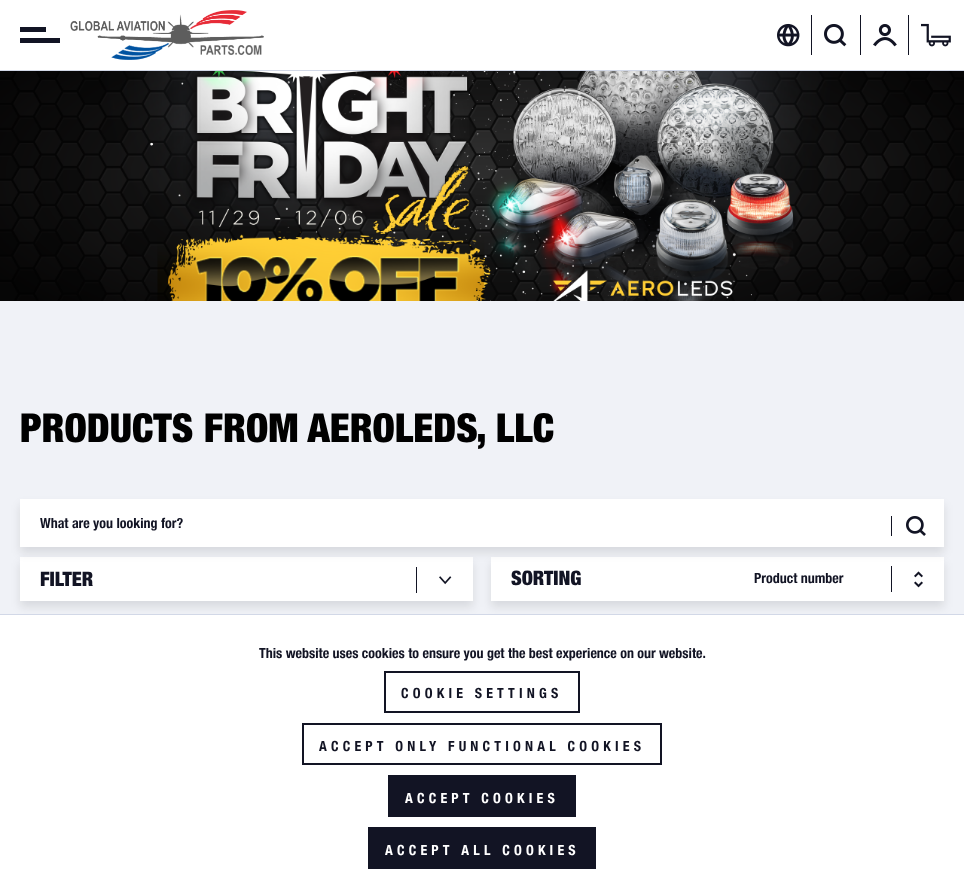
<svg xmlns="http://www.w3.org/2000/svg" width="964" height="894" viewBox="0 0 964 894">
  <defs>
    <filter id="blur1" x="-50%" y="-200%" width="200%" height="500%"><feGaussianBlur stdDeviation="5"/></filter>
  </defs>
  <rect width="100%" height="100%" fill="#f0f2f7"/>
  <rect x="0" y="0" width="964" height="70" fill="#ffffff"/>
  <rect x="0" y="70" width="964" height="1" fill="#d2d8e7"/>
  <rect x="20" y="27" width="26" height="5" fill="#121424"/>
  <rect x="20" y="38" width="40" height="5" fill="#121424"/>
  <image x="70" y="10" width="194" height="50" href="img1.png"/>
  <image x="777" y="23" width="23" height="24" href="img2.png"/>
  <rect x="811" y="15" width="1" height="40" fill="#121424"/>
  <image x="824" y="24" width="23" height="23" href="img3.png"/>
  <rect x="860" y="15" width="1" height="40" fill="#121424"/>
  <image x="873" y="24" width="24" height="23" href="img4.png"/>
  <rect x="908" y="15" width="1" height="40" fill="#121424"/>
  <image x="921" y="23" width="30" height="24" href="img5.png"/>
  <image x="0" y="71" width="964" height="230" href="img6.png"/>
  <text x="20" y="442" font-family="Helvetica Neue" font-size="40" font-weight="900" fill="#000000">PRODUCTS FROM AEROLEDS, LLC</text>
  <rect x="20" y="563" width="453" height="44" fill="#000000" fill-opacity="0.1" filter="url(#blur1)"/>
  <rect x="20" y="557" width="453" height="44" fill="#ffffff"/>
  <rect x="416" y="567" width="1" height="26" fill="#121424"/>
  <rect x="491" y="563" width="453" height="44" fill="#000000" fill-opacity="0.1" filter="url(#blur1)"/>
  <rect x="491" y="557" width="453" height="44" fill="#ffffff"/>
  <rect x="891" y="566" width="1" height="26" fill="#121424"/>
  <rect x="20" y="505" width="924" height="48" fill="#000000" fill-opacity="0.1" filter="url(#blur1)"/>
  <rect x="20" y="499" width="924" height="48" fill="#ffffff"/>
  <text x="40" y="528" font-family="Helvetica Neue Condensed" font-size="14" font-weight="bold" fill="#121424">What are you looking for?</text>
  <rect x="891" y="516" width="1" height="20" fill="#121424"/>
  <image x="906" y="516" width="20" height="20" href="img7.png"/>
  <text x="40" y="586" font-family="Helvetica Neue" font-size="20" font-weight="900" fill="#121424">FILTER</text>
  <image x="439" y="576" width="13" height="9" href="img8.png"/>
  <text x="511" y="585" font-family="Helvetica Neue" font-size="20" font-weight="900" fill="#121424">SORTING</text>
  <text x="754" y="583" font-family="Helvetica Neue Condensed" font-size="14" font-weight="bold" fill="#121424">Product number</text>
  <image x="914" y="571" width="9" height="17" href="img9.png"/>
  <rect x="0" y="615" width="964" height="279" fill="#ffffff"/>
  <rect x="0" y="614" width="964" height="1" fill="#d2d8e7"/>
  <text x="259" y="658" font-family="Helvetica Neue Condensed" font-size="14" font-weight="bold" fill="#121424">This website uses cookies to ensure you get the best experience on our website.</text>
  <rect x="385" y="672" width="194" height="40" fill="none" stroke="#121424" stroke-width="2"/>
  <text x="401" y="698" font-family="Helvetica Neue Condensed" font-size="14" font-weight="bold" letter-spacing="4.2" fill="#121424">COOKIE SETTINGS</text>
  <rect x="303" y="724" width="358" height="40" fill="none" stroke="#121424" stroke-width="2"/>
  <text x="319" y="751" font-family="Helvetica Neue Condensed" font-size="14" font-weight="bold" letter-spacing="4.2" fill="#121424">ACCEPT ONLY FUNCTIONAL COOKIES</text>
  <rect x="388" y="775" width="188" height="42" fill="#121424"/>
  <text x="405" y="803" font-family="Helvetica Neue Condensed" font-size="14" font-weight="bold" letter-spacing="4.2" fill="#ffffff">ACCEPT COOKIES</text>
  <rect x="368" y="827" width="228" height="42" fill="#121424"/>
  <text x="385" y="855" font-family="Helvetica Neue Condensed" font-size="14" font-weight="bold" letter-spacing="4.2" fill="#ffffff">ACCEPT ALL COOKIES</text>
</svg>
